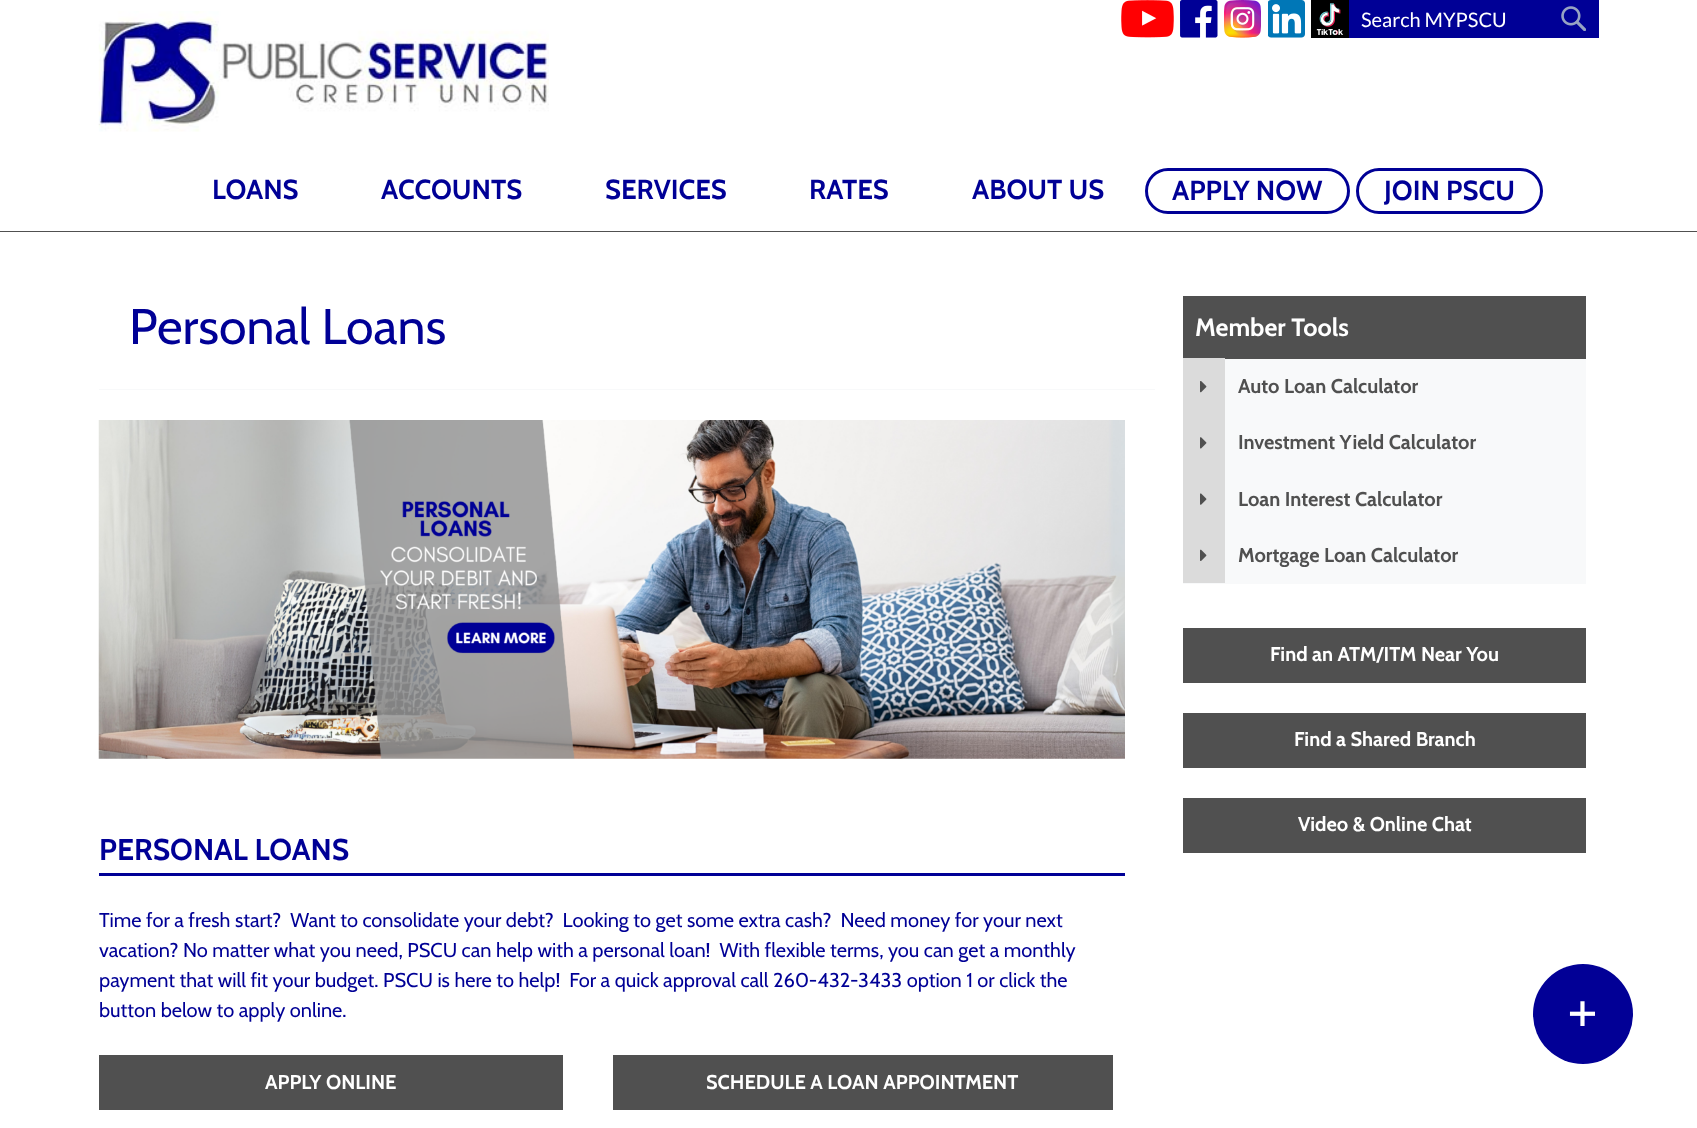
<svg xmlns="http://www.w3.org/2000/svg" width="1697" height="1128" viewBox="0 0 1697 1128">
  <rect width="100%" height="100%" fill="#ffffff"/>
  <rect x="0" y="231" width="1697" height="1" fill="#505050"/>
  <image x="1121" y="0" width="53" height="38" href="img1.png"/>
  <image x="1180" y="0" width="38" height="38" href="img2.png"/>
  <image x="1224" y="0" width="37" height="38" href="img3.png"/>
  <image x="1268" y="0" width="37" height="38" href="img4.png"/>
  <image x="1311" y="0" width="38" height="38" href="img5.png"/>
  <rect x="1349" y="0" width="250" height="38" fill="#000096"/>
  <text x="1361" y="27" font-family="Lato" font-size="20" fill="#ffffff">Search MYPSCU</text>
  <image x="1561" y="6" width="25" height="25" href="img6.png"/>
  <image x="98" y="11" width="451" height="121" href="img7.png"/>
  <text x="212" y="199" font-family="Cabin" font-size="27.5" font-weight="bold" fill="#000096">LOANS</text>
  <text x="381" y="199" font-family="Cabin" font-size="27.5" font-weight="bold" fill="#000096">ACCOUNTS</text>
  <text x="605" y="199" font-family="Cabin" font-size="27.5" font-weight="bold" fill="#000096">SERVICES</text>
  <text x="809" y="199" font-family="Cabin" font-size="27.5" font-weight="bold" fill="#000096">RATES</text>
  <text x="972" y="199" font-family="Cabin" font-size="27.5" font-weight="bold" fill="#000096">ABOUT US</text>
  <rect x="1146.5" y="169.5" width="202" height="43" rx="21.5" fill="none" stroke="#000096" stroke-width="3"/>
  <text x="1172" y="200" font-family="Cabin" font-size="27.5" font-weight="bold" fill="#000096">APPLY NOW</text>
  <rect x="1357.5" y="169.5" width="184" height="43" rx="21.5" fill="none" stroke="#000096" stroke-width="3"/>
  <text x="1384" y="200" font-family="Cabin" font-size="27.5" font-weight="bold" fill="#000096">JOIN PSCU</text>
  <rect x="99" y="389" width="1056" height="1" fill="#f8f9fa"/>
  <text x="129" y="344" font-family="Cabin" font-size="50" fill="#000096">Personal Loans</text>
  <image x="98" y="420" width="1027" height="339" href="img8.png"/>
  <rect x="99" y="873" width="1026" height="3" fill="#000096"/>
  <text x="99" y="860" font-family="Cabin" font-size="30" font-weight="bold" fill="#000096">PERSONAL LOANS</text>
  <text x="99" y="927" font-family="Cabin" font-size="20" fill="#000096" xml:space="preserve">Time for a fresh start?  Want to consolidate your debt?  Looking to get some extra cash?  Need money for your next</text>
  <text x="99" y="957" font-family="Cabin" font-size="20" fill="#000096" xml:space="preserve">vacation? No matter what you need, PSCU can help with a personal loan!  With flexible terms, you can get a monthly</text>
  <text x="99" y="987" font-family="Cabin" font-size="20" fill="#000096" xml:space="preserve">payment that will fit your budget. PSCU is here to help!  For a quick approval call 260-432-3433 option 1 or click the</text>
  <text x="99" y="1017" font-family="Cabin" font-size="20" fill="#000096">button below to apply online.</text>
  <rect x="99" y="1055" width="464" height="55" fill="#505050"/>
  <text x="265" y="1089" font-family="Cabin" font-size="20" font-weight="bold" fill="#ffffff">APPLY ONLINE</text>
  <rect x="613" y="1055" width="500" height="55" fill="#505050"/>
  <text x="706" y="1089" font-family="Cabin" font-size="20" font-weight="bold" fill="#ffffff">SCHEDULE A LOAN APPOINTMENT</text>
  <rect x="1183" y="296" width="403" height="63" fill="#505050"/>
  <text x="1195" y="336" font-family="Cabin" font-size="25" font-weight="bold" fill="#ffffff">Member Tools</text>
  <rect x="1183" y="359" width="403" height="225" fill="#f8f9fa"/>
  <rect x="1183" y="358" width="42" height="225" fill="#dbdbdb"/>
  <text x="1238" y="393" font-family="Cabin" font-size="20" font-weight="bold" fill="#505050">Auto Loan Calculator</text>
  <image x="1200" y="381" width="7" height="12" href="img9.png"/>
  <image x="1200" y="437" width="7" height="12" href="img10.png"/>
  <text x="1238" y="449" font-family="Cabin" font-size="20" font-weight="bold" fill="#505050">Investment Yield Calculator</text>
  <image x="1200" y="493" width="7" height="12" href="img11.png"/>
  <text x="1238" y="506" font-family="Cabin" font-size="20" font-weight="bold" fill="#505050">Loan Interest Calculator</text>
  <image x="1200" y="549" width="7" height="12" href="img12.png"/>
  <text x="1238" y="562" font-family="Cabin" font-size="20" font-weight="bold" fill="#505050">Mortgage Loan Calculator</text>
  <rect x="1183" y="628" width="403" height="55" fill="#505050"/>
  <text x="1270" y="661" font-family="Cabin" font-size="20" font-weight="bold" fill="#ffffff">Find an ATM/ITM Near You</text>
  <rect x="1183" y="713" width="403" height="55" fill="#505050"/>
  <text x="1294" y="746" font-family="Cabin" font-size="20" font-weight="bold" fill="#ffffff">Find a Shared Branch</text>
  <rect x="1183" y="798" width="403" height="55" fill="#505050"/>
  <text x="1298" y="831" font-family="Cabin" font-size="20" font-weight="bold" fill="#ffffff">Video &amp; Online Chat</text>
  <circle cx="1583" cy="1014" r="50" fill="#020096"/>
  <image x="1569" y="1001" width="26" height="25" href="img13.png"/>
</svg>
